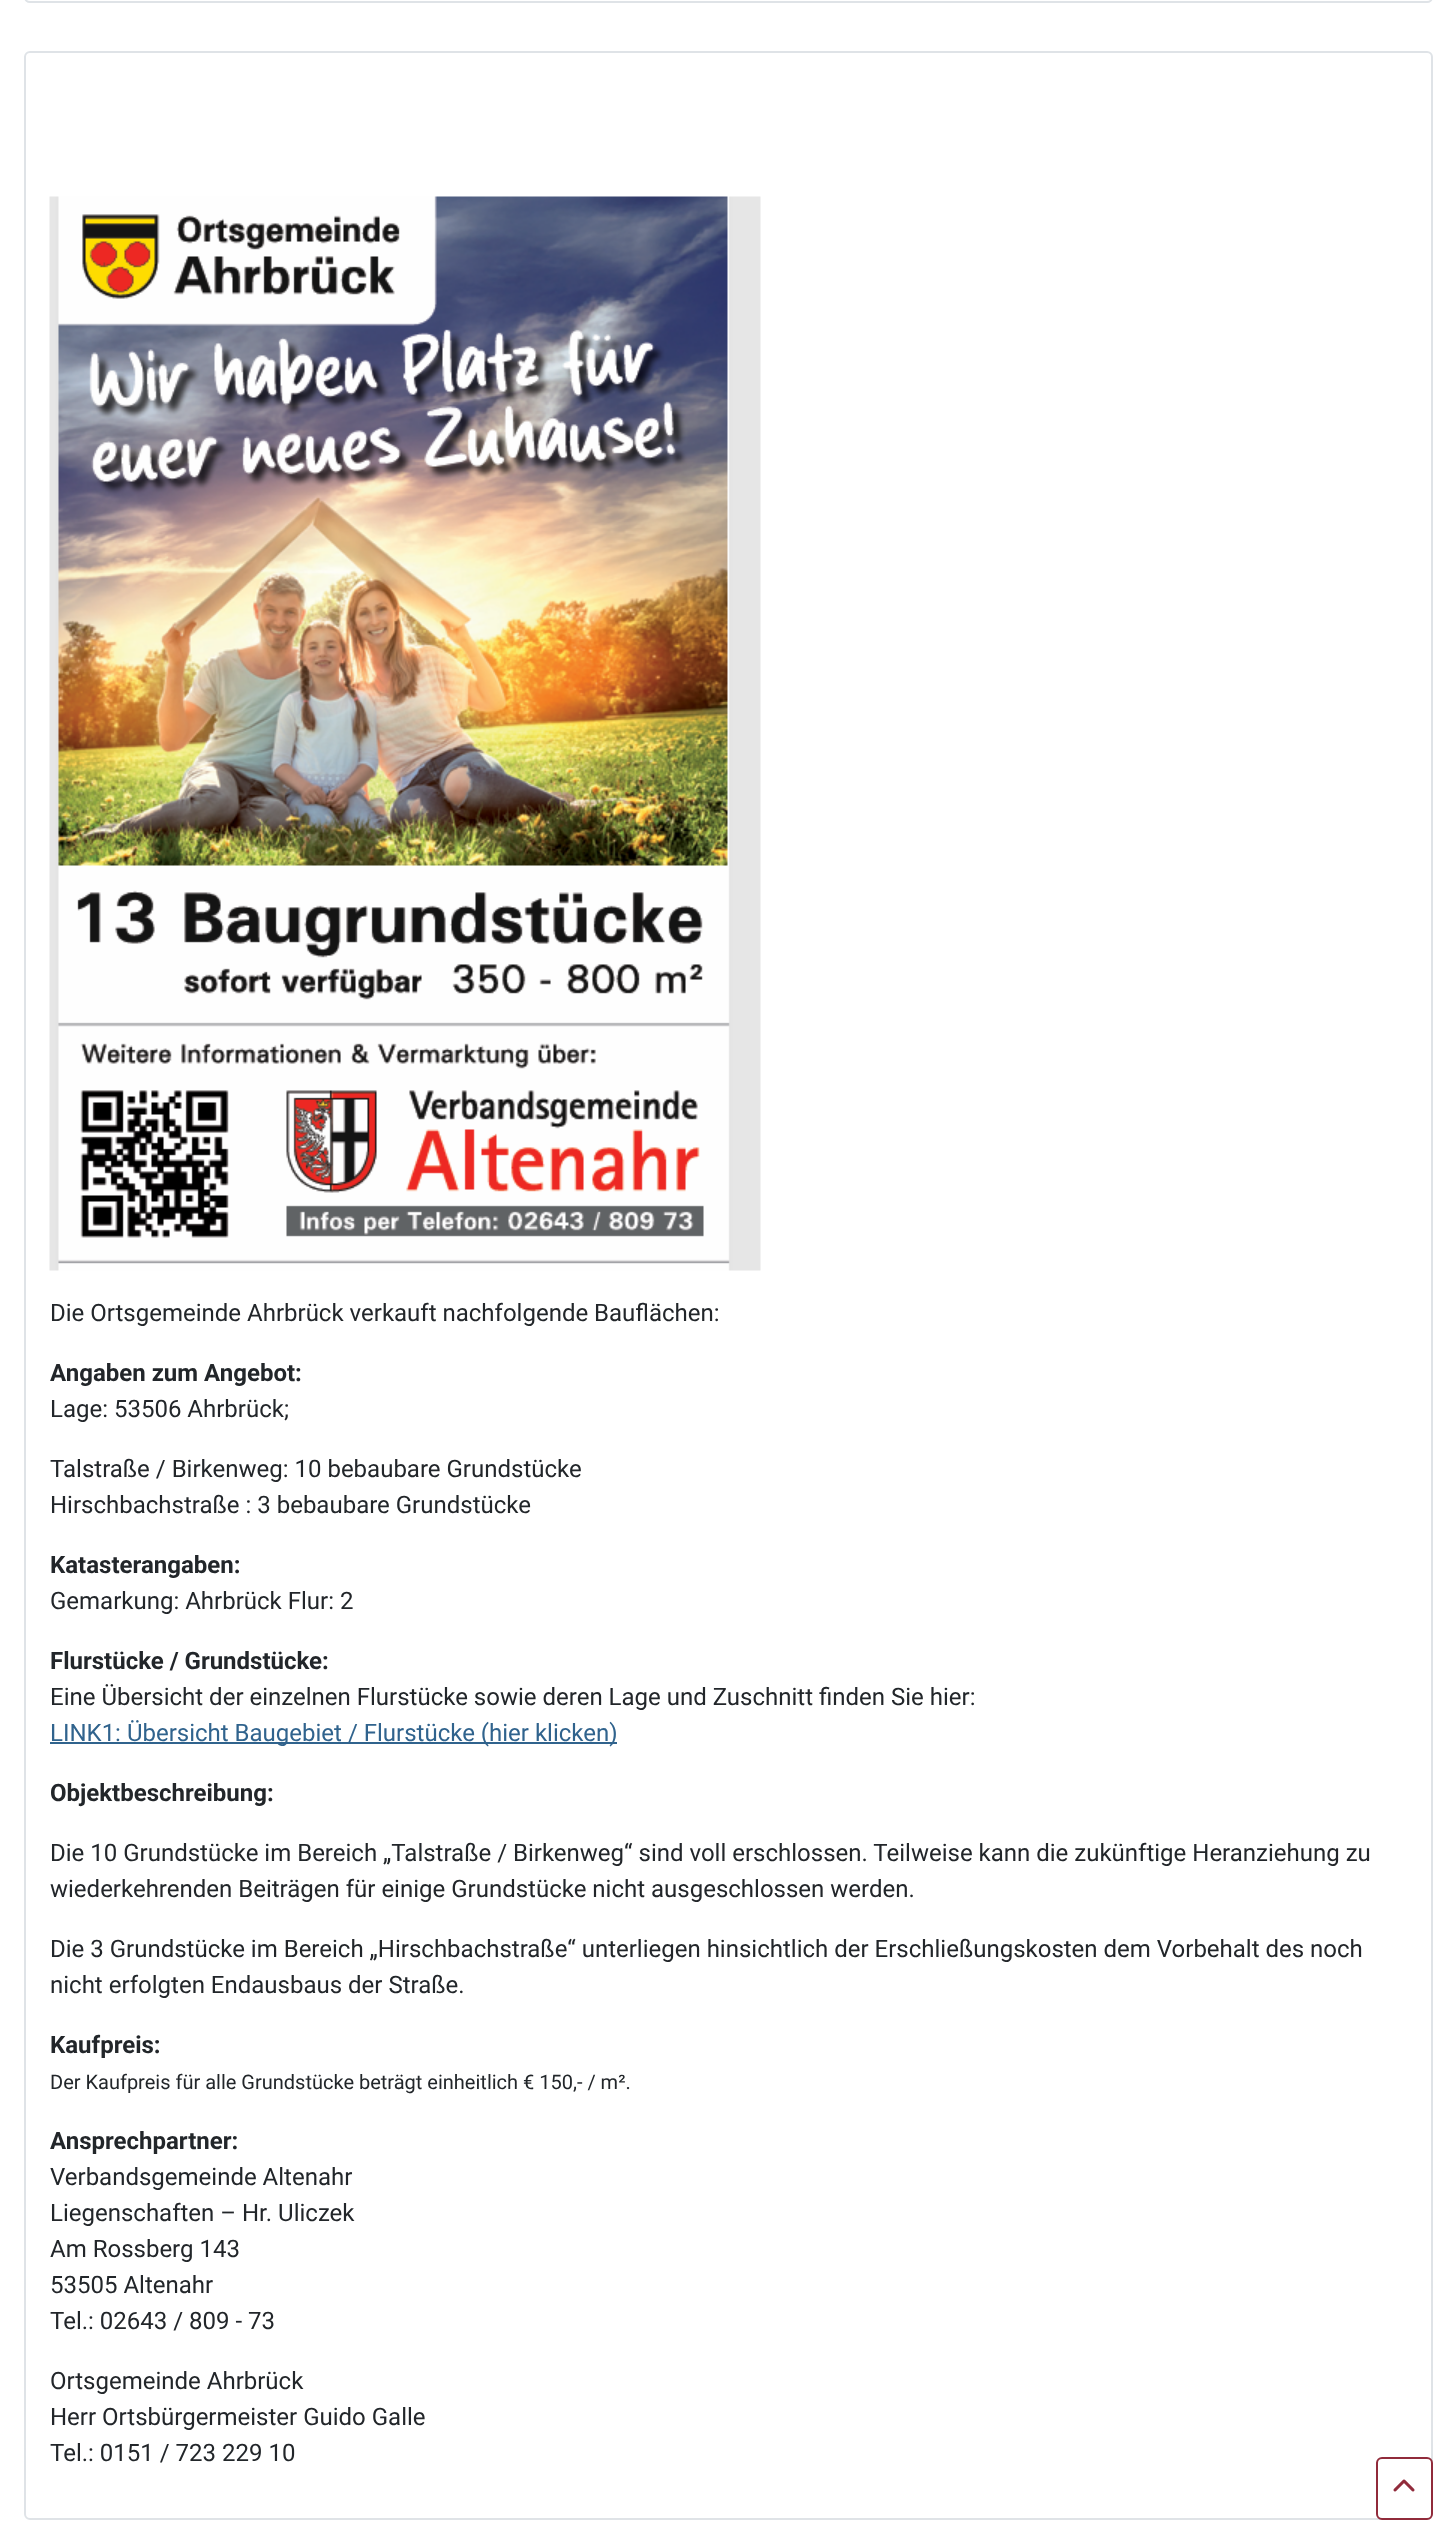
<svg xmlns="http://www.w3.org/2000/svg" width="1456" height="2543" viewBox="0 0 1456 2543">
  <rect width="100%" height="100%" fill="#ffffff"/>
  <rect x="25" y="-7" width="1407" height="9" rx="5" fill="none" stroke="#dfe3e7" stroke-width="2"/>
  <rect x="25" y="52" width="1407" height="2467" rx="5" fill="none" stroke="#dfe3e7" stroke-width="2"/>
  <image x="49" y="196" width="712" height="1075" href="img1.png"/>
  <text x="50" y="1321" font-family="Roboto" font-size="24" fill="#22262a">Die Ortsgemeinde Ahrbrück verkauft nachfolgende Bauflächen:</text>
  <text x="50" y="1381" font-family="Roboto" font-size="24" font-weight="bold" fill="#22262a">Angaben zum Angebot:</text>
  <text x="50" y="1417" font-family="Roboto" font-size="24" fill="#22262a">Lage: 53506 Ahrbrück;</text>
  <text x="50" y="1477" font-family="Roboto" font-size="24" fill="#22262a">Talstraße / Birkenweg: 10 bebaubare Grundstücke</text>
  <text x="50" y="1513" font-family="Roboto" font-size="24" fill="#22262a">Hirschbachstraße : 3 bebaubare Grundstücke</text>
  <text x="50" y="1573" font-family="Roboto" font-size="24" font-weight="bold" fill="#22262a">Katasterangaben:</text>
  <text x="50" y="1609" font-family="Roboto" font-size="24" fill="#22262a">Gemarkung: Ahrbrück Flur: 2</text>
  <text x="50" y="1669" font-family="Roboto" font-size="24" font-weight="bold" fill="#22262a">Flurstücke / Grundstücke:</text>
  <text x="50" y="1705" font-family="Roboto" font-size="24" fill="#22262a">Eine Übersicht der einzelnen Flurstücke sowie deren Lage und Zuschnitt finden Sie hier:</text>
  <rect x="50" y="1742" width="567" height="2" fill="#30638d"/>
  <text x="50" y="1741" font-family="Roboto" font-size="24" fill="#30638d">LINK1: Übersicht Baugebiet / Flurstücke (hier klicken)</text>
  <text x="50" y="1801" font-family="Roboto" font-size="24" font-weight="bold" fill="#22262a">Objektbeschreibung:</text>
  <text x="50" y="1861" font-family="Roboto" font-size="24" fill="#22262a">Die 10 Grundstücke im Bereich „Talstraße / Birkenweg“ sind voll erschlossen. Teilweise kann die zukünftige Heranziehung zu</text>
  <text x="50" y="1897" font-family="Roboto" font-size="24" fill="#22262a">wiederkehrenden Beiträgen für einige Grundstücke nicht ausgeschlossen werden.</text>
  <text x="50" y="1957" font-family="Roboto" font-size="24" fill="#22262a">Die 3 Grundstücke im Bereich „Hirschbachstraße“ unterliegen hinsichtlich der Erschließungskosten dem Vorbehalt des noch</text>
  <text x="50" y="1993" font-family="Roboto" font-size="24" fill="#22262a">nicht erfolgten Endausbaus der Straße.</text>
  <text x="50" y="2053" font-family="Roboto" font-size="24" font-weight="bold" fill="#22262a">Kaufpreis:</text>
  <text x="50" y="2089" font-family="Roboto" font-size="20" fill="#22262a">Der Kaufpreis für alle Grundstücke beträgt einheitlich € 150,- / m².</text>
  <text x="50" y="2149" font-family="Roboto" font-size="24" font-weight="bold" fill="#22262a">Ansprechpartner:</text>
  <text x="50" y="2185" font-family="Roboto" font-size="24" fill="#22262a">Verbandsgemeinde Altenahr</text>
  <text x="50" y="2221" font-family="Roboto" font-size="24" fill="#22262a">Liegenschaften – Hr. Uliczek</text>
  <text x="50" y="2257" font-family="Roboto" font-size="24" fill="#22262a">Am Rossberg 143</text>
  <text x="50" y="2293" font-family="Roboto" font-size="24" fill="#22262a">53505 Altenahr</text>
  <text x="50" y="2329" font-family="Roboto" font-size="24" fill="#22262a">Tel.: 02643 / 809 - 73</text>
  <text x="50" y="2389" font-family="Roboto" font-size="24" fill="#22262a">Ortsgemeinde Ahrbrück</text>
  <text x="50" y="2425" font-family="Roboto" font-size="24" fill="#22262a">Herr Ortsbürgermeister Guido Galle</text>
  <text x="50" y="2461" font-family="Roboto" font-size="24" fill="#22262a">Tel.: 0151 / 723 229 10</text>
  <rect x="1377" y="2458" width="55" height="61" rx="5" fill="#ffffff" stroke="#912b3b" stroke-width="2"/>
  <image x="1393" y="2479" width="22" height="13" href="img2.png"/>
</svg>
